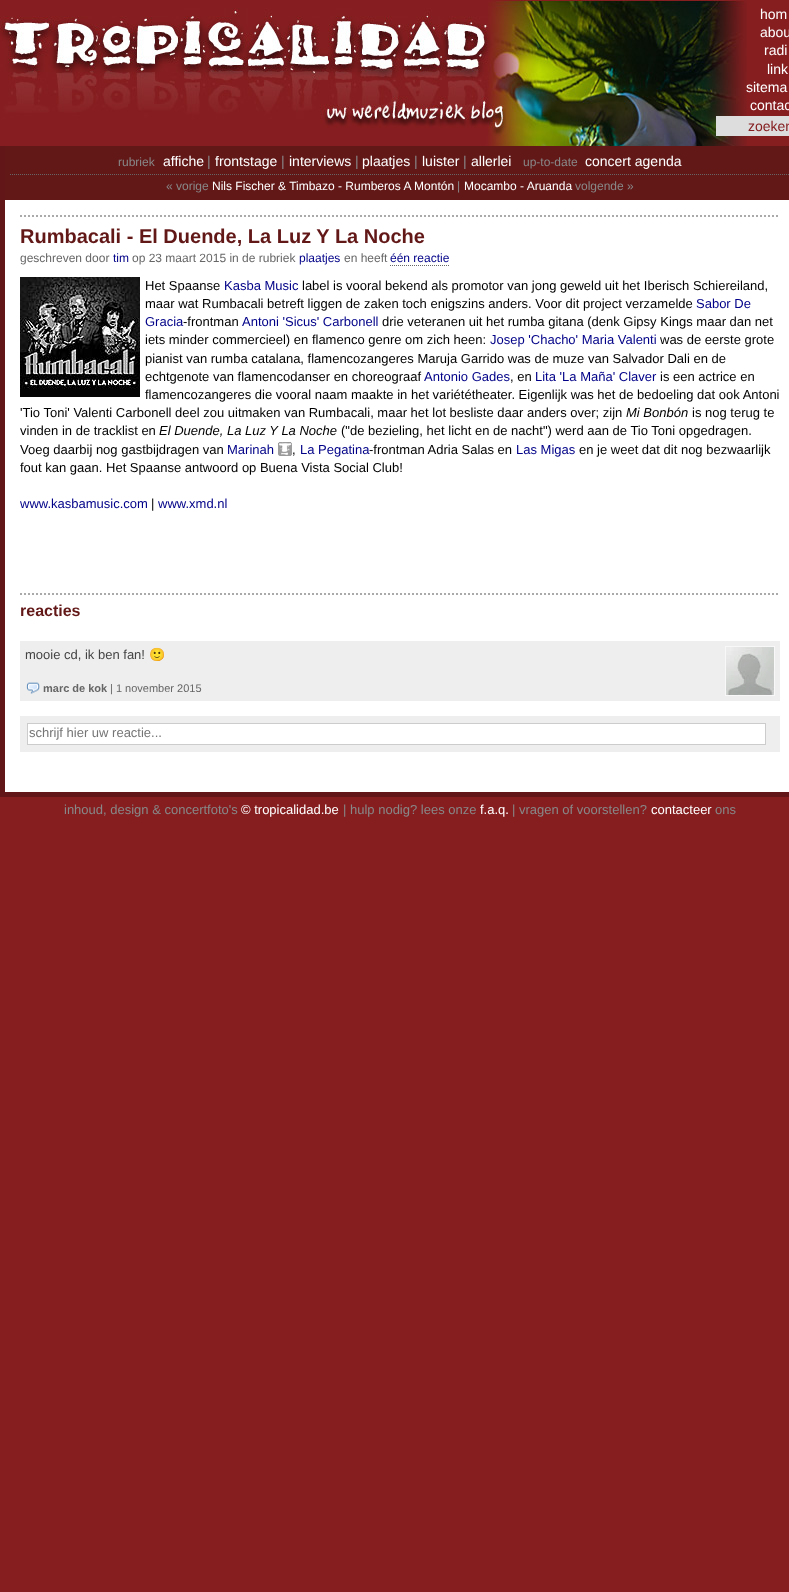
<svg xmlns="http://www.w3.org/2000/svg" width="789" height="1592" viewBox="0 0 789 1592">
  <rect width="100%" height="100%" fill="#861e20"/>
  <image x="0" y="0" width="747" height="146" href="img1.png"/>
  <text x="760" y="19" font-family="Liberation Sans" font-size="14" fill="#ffffff">hom</text>
  <text x="760" y="37" font-family="Liberation Sans" font-size="14" fill="#ffffff">abou</text>
  <text x="764" y="55" font-family="Liberation Sans" font-size="14" fill="#ffffff">radi</text>
  <text x="767" y="74" font-family="Liberation Sans" font-size="14" fill="#ffffff">link</text>
  <text x="746" y="92" font-family="Liberation Sans" font-size="14" fill="#ffffff">sitema</text>
  <text x="750" y="110" font-family="Liberation Sans" font-size="14" fill="#ffffff">contac</text>
  <rect x="716" y="116" width="73" height="20" fill="#dddddd"/>
  <text x="748" y="131" font-family="Liberation Sans" font-size="14" fill="#861e20">zoeken</text>
  <rect x="5" y="200" width="784" height="592" fill="#ffffff"/>
  <rect x="0" y="792" width="789" height="5" fill="#631618"/>
  <rect x="0" y="146" width="5" height="651" fill="#631618"/>
  <rect x="5" y="146" width="784" height="54" fill="#631818"/>
  <text x="118" y="166" font-family="Liberation Sans" font-size="12" fill="#888888">rubriek</text>
  <text x="163" y="166" font-family="Liberation Sans" font-size="14" fill="#ffffff">affiche</text>
  <text x="207" y="166" font-family="Liberation Sans" font-size="14" fill="#888888">|</text>
  <text x="215" y="166" font-family="Liberation Sans" font-size="14" fill="#ffffff">frontstage</text>
  <text x="281" y="166" font-family="Liberation Sans" font-size="14" fill="#888888">|</text>
  <text x="289" y="166" font-family="Liberation Sans" font-size="14" fill="#ffffff">interviews</text>
  <text x="355" y="166" font-family="Liberation Sans" font-size="14" fill="#888888">|</text>
  <text x="362" y="166" font-family="Liberation Sans" font-size="14" fill="#ffffff">plaatjes</text>
  <text x="414" y="166" font-family="Liberation Sans" font-size="14" fill="#888888">|</text>
  <text x="422" y="166" font-family="Liberation Sans" font-size="14" fill="#ffffff">luister</text>
  <text x="463" y="166" font-family="Liberation Sans" font-size="14" fill="#888888">|</text>
  <text x="471" y="166" font-family="Liberation Sans" font-size="14" fill="#ffffff">allerlei</text>
  <text x="523" y="166" font-family="Liberation Sans" font-size="12" fill="#888888">up-to-date</text>
  <text x="585" y="166" font-family="Liberation Sans" font-size="14" fill="#ffffff">concert agenda</text>
  <path d="M10 174.5H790" fill="none" stroke="#666666" stroke-dasharray="1 1"/>
  <text x="166" y="190" font-family="Liberation Sans" font-size="12" fill="#888888">« vorige</text>
  <text x="212" y="190" font-family="Liberation Sans" font-size="12" fill="#ffffff">Nils Fischer &amp; Timbazo - Rumberos A Montón</text>
  <text x="457" y="190" font-family="Liberation Sans" font-size="12" fill="#888888">|</text>
  <text x="464" y="190" font-family="Liberation Sans" font-size="12" fill="#ffffff">Mocambo - Aruanda</text>
  <text x="575" y="190" font-family="Liberation Sans" font-size="12" fill="#888888">volgende »</text>
  <path d="M20 216H780" fill="none" stroke="#aaaaaa" stroke-width="2" stroke-dasharray="2 2"/>
  <text x="20" y="243" font-family="Liberation Sans" font-size="20" font-weight="bold" fill="#631818">Rumbacali - El Duende, La Luz Y La Noche</text>
  <text x="20" y="262" font-family="Liberation Sans" font-size="12" fill="#666666">geschreven door</text>
  <text x="113" y="262" font-family="Liberation Sans" font-size="12" fill="#000088">tim</text>
  <text x="132" y="262" font-family="Liberation Sans" font-size="12" fill="#666666">op 23 maart 2015 in de rubriek</text>
  <text x="299" y="262" font-family="Liberation Sans" font-size="12" fill="#000088">plaatjes</text>
  <text x="344" y="262" font-family="Liberation Sans" font-size="12" fill="#666666">en heeft</text>
  <text x="390" y="262" font-family="Liberation Sans" font-size="12" fill="#000088">één reactie</text>
  <path d="M390 265.5H450" fill="none" stroke="#666666" stroke-dasharray="1 1"/>
  <image x="20" y="277" width="120" height="120" href="img2.png"/>
  <text x="145" y="290" font-family="Liberation Sans" font-size="13" fill="#000000">Het Spaanse</text>
  <text x="224" y="290" font-family="Liberation Sans" font-size="13" fill="#000088">Kasba Music</text>
  <text x="302" y="290" font-family="Liberation Sans" font-size="13" fill="#000000">label is vooral bekend als promotor van jong geweld uit het Iberisch Schiereiland,</text>
  <text x="145" y="308" font-family="Liberation Sans" font-size="13" fill="#000000">maar wat Rumbacali betreft liggen de zaken toch enigszins anders. Voor dit project verzamelde</text>
  <text x="696" y="308" font-family="Liberation Sans" font-size="13" fill="#000088">Sabor De</text>
  <text x="145" y="326" font-family="Liberation Sans" font-size="13" fill="#000088">Gracia</text>
  <text x="183" y="326" font-family="Liberation Sans" font-size="13" fill="#000000">-frontman</text>
  <text x="242" y="326" font-family="Liberation Sans" font-size="13" fill="#000088">Antoni 'Sicus' Carbonell</text>
  <text x="382" y="326" font-family="Liberation Sans" font-size="13" fill="#000000">drie veteranen uit het rumba gitana (denk Gipsy Kings maar dan net</text>
  <text x="145" y="344" font-family="Liberation Sans" font-size="13" fill="#000000">iets minder commercieel) en flamenco genre om zich heen:</text>
  <text x="490" y="344" font-family="Liberation Sans" font-size="13" fill="#000088">Josep 'Chacho' Maria Valenti</text>
  <text x="660" y="344" font-family="Liberation Sans" font-size="13" fill="#000000">was de eerste grote</text>
  <text x="145" y="363" font-family="Liberation Sans" font-size="13" fill="#000000">pianist van rumba catalana, flamencozangeres Maruja Garrido was de muze van Salvador Dali en de</text>
  <text x="145" y="381" font-family="Liberation Sans" font-size="13" fill="#000000">echtgenote van flamencodanser en choreograaf</text>
  <text x="424" y="381" font-family="Liberation Sans" font-size="13" fill="#000088">Antonio Gades</text>
  <text x="510" y="381" font-family="Liberation Sans" font-size="13" fill="#000000">, en</text>
  <text x="535" y="381" font-family="Liberation Sans" font-size="13" fill="#000088">Lita 'La Maña' Claver</text>
  <text x="660" y="381" font-family="Liberation Sans" font-size="13" fill="#000000">is een actrice en</text>
  <text x="145" y="399" font-family="Liberation Sans" font-size="13" fill="#000000">flamencozangeres die vooral naam maakte in het variététheater. Eigenlijk was het de bedoeling dat ook Antoni</text>
  <text x="20" y="417" font-family="Liberation Sans" font-size="13" fill="#000000">'Tio Toni' Valenti Carbonell deel zou uitmaken van Rumbacali, maar het lot besliste daar anders over; zijn</text>
  <text x="626" y="417" font-family="Liberation Sans" font-size="13" font-style="italic" fill="#000000">Mi Bonbón</text>
  <text x="692" y="417" font-family="Liberation Sans" font-size="13" fill="#000000">is nog terug te</text>
  <text x="20" y="435" font-family="Liberation Sans" font-size="13" fill="#000000">vinden in de tracklist en</text>
  <text x="159" y="435" font-family="Liberation Sans" font-size="13" font-style="italic" fill="#000000">El Duende, La Luz Y La Noche</text>
  <text x="341" y="435" font-family="Liberation Sans" font-size="13" fill="#000000">("de bezieling, het licht en de nacht") werd aan de Tio Toni opgedragen.</text>
  <text x="20" y="454" font-family="Liberation Sans" font-size="13" fill="#000000">Voeg daarbij nog gastbijdragen van</text>
  <text x="227" y="454" font-family="Liberation Sans" font-size="13" fill="#000088">Marinah</text>
  <image x="278" y="442" width="14" height="14" href="img3.png"/>
  <text x="292" y="454" font-family="Liberation Sans" font-size="13" fill="#000000">,</text>
  <text x="300" y="454" font-family="Liberation Sans" font-size="13" fill="#000088">La Pegatina</text>
  <text x="369" y="454" font-family="Liberation Sans" font-size="13" fill="#000000">-frontman Adria Salas en</text>
  <text x="516" y="454" font-family="Liberation Sans" font-size="13" fill="#000088">Las Migas</text>
  <text x="579" y="454" font-family="Liberation Sans" font-size="13" fill="#000000">en je weet dat dit nog bezwaarlijk</text>
  <text x="20" y="472" font-family="Liberation Sans" font-size="13" fill="#000000">fout kan gaan. Het Spaanse antwoord op Buena Vista Social Club!</text>
  <text x="20" y="508" font-family="Liberation Sans" font-size="13" fill="#000088">www.kasbamusic.com</text>
  <text x="151" y="508" font-family="Liberation Sans" font-size="13" fill="#000000">|</text>
  <text x="158" y="508" font-family="Liberation Sans" font-size="13" fill="#000088">www.xmd.nl</text>
  <path d="M20 594H780" fill="none" stroke="#aaaaaa" stroke-width="2" stroke-dasharray="2 2"/>
  <text x="20" y="616" font-family="Liberation Sans" font-size="16" font-weight="bold" fill="#631818">reacties</text>
  <rect x="20" y="641" width="760" height="60" fill="#eeeeee"/>
  <text x="25" y="659" font-family="Liberation Sans" font-size="13" fill="#444444">mooie cd, ik ben fan!</text>
  <text x="149" y="659" font-family="Noto Color Emoji" font-size="13" fill="#444444">🙂</text>
  <rect x="725.5" y="646.5" width="49" height="49" fill="none" stroke="#f8f8f8"/>
  <image x="726" y="647" width="48" height="48" href="img4.png"/>
  <image x="26" y="682" width="14" height="12" href="img5.png"/>
  <text x="43" y="692" font-family="Liberation Sans" font-size="11" font-weight="bold" fill="#666666">marc de kok</text>
  <text x="110" y="692" font-family="Liberation Sans" font-size="11" fill="#666666">| 1 november 2015</text>
  <rect x="20" y="716" width="760" height="36" fill="#eeeeee"/>
  <rect x="27.5" y="723.5" width="738" height="21" fill="#ffffff" stroke="#cccccc"/>
  <text x="29" y="737" font-family="Liberation Sans" font-size="13" fill="#757575">schrijf hier uw reactie...</text>
  <text x="64" y="814" font-family="Liberation Sans" font-size="13" fill="#888888">inhoud, design &amp; concertfoto's</text>
  <text x="241" y="814" font-family="Liberation Sans" font-size="13" fill="#ffffff">© tropicalidad.be</text>
  <text x="343" y="814" font-family="Liberation Sans" font-size="13" fill="#888888">| hulp nodig? lees onze</text>
  <text x="480" y="814" font-family="Liberation Sans" font-size="13" fill="#ffffff">f.a.q.</text>
  <text x="512" y="814" font-family="Liberation Sans" font-size="13" fill="#888888">| vragen of voorstellen?</text>
  <text x="651" y="814" font-family="Liberation Sans" font-size="13" fill="#ffffff">contacteer</text>
  <text x="715" y="814" font-family="Liberation Sans" font-size="13" fill="#888888">ons</text>
</svg>
